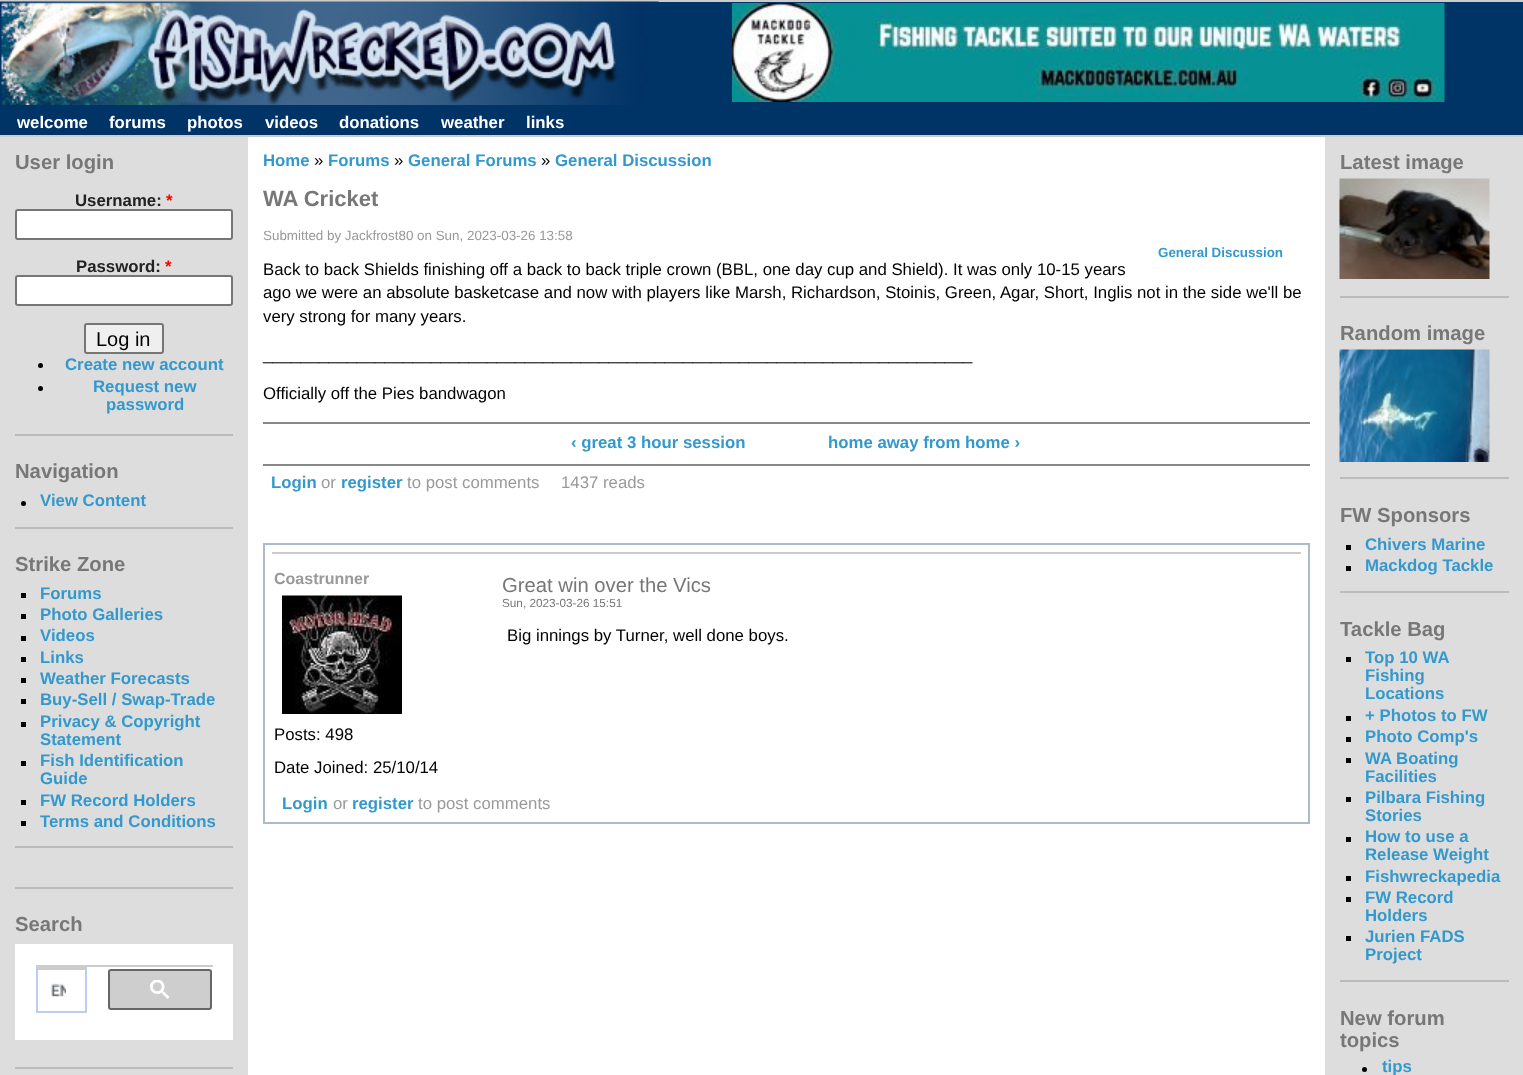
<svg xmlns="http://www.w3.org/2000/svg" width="1523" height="1075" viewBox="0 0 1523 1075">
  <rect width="100%" height="100%" fill="#ffffff"/>
  <rect x="0" y="2" width="1523" height="133" fill="#003366"/>
  <rect x="0" y="0" width="1523" height="2" fill="#cccccc"/>
  <image x="0" y="1" width="659" height="104" href="img1.png"/>
  <image x="732" y="3" width="713" height="99" href="img2.png"/>
  <text x="17" y="128" font-family="Liberation Sans" font-size="16.8" font-weight="bold" fill="#ffffff">welcome</text>
  <text x="109" y="128" font-family="Liberation Sans" font-size="16.8" font-weight="bold" fill="#ffffff">forums</text>
  <text x="187" y="128" font-family="Liberation Sans" font-size="16.8" font-weight="bold" fill="#ffffff">photos</text>
  <text x="265" y="128" font-family="Liberation Sans" font-size="16.8" font-weight="bold" fill="#ffffff">videos</text>
  <text x="339" y="128" font-family="Liberation Sans" font-size="16.8" font-weight="bold" fill="#ffffff">donations</text>
  <text x="441" y="128" font-family="Liberation Sans" font-size="16.8" font-weight="bold" fill="#ffffff">weather</text>
  <text x="526" y="128" font-family="Liberation Sans" font-size="16.8" font-weight="bold" fill="#ffffff">links</text>
  <rect x="0" y="135" width="1523" height="2" fill="#cccccc"/>
  <rect x="0" y="137" width="248" height="938" fill="#dddddd"/>
  <rect x="15" y="434" width="218" height="2" fill="#bbbbbb"/>
  <text x="15" y="169" font-family="Liberation Sans" font-size="20.25" font-weight="bold" fill="#777777">User login</text>
  <text x="75" y="206" font-family="Liberation Sans" font-size="16.8" font-weight="bold" fill="#222222">Username:</text>
  <text x="166" y="206" font-family="Liberation Sans" font-size="16.8" font-weight="bold" fill="#ff0000">*</text>
  <rect x="16" y="210" width="216" height="29" rx="2" fill="#ffffff" stroke="#767676" stroke-width="2"/>
  <text x="76" y="272" font-family="Liberation Sans" font-size="16.8" font-weight="bold" fill="#222222">Password:</text>
  <text x="165" y="272" font-family="Liberation Sans" font-size="16.8" font-weight="bold" fill="#ff0000">*</text>
  <rect x="16" y="276" width="216" height="29" rx="2" fill="#ffffff" stroke="#767676" stroke-width="2"/>
  <rect x="85" y="324" width="78" height="29" rx="2" fill="#efefef" stroke="#767676" stroke-width="2"/>
  <text x="96" y="346" font-family="Liberation Sans" font-size="20" fill="#000000">Log in</text>
  <circle cx="40.5" cy="365.5" r="2.5" fill="#000000"/>
  <text x="65" y="370" font-family="Liberation Sans" font-size="16.8" font-weight="bold" fill="#3399cc">Create new account</text>
  <circle cx="40.5" cy="388.5" r="2.5" fill="#000000"/>
  <text x="93" y="392" font-family="Liberation Sans" font-size="16.8" font-weight="bold" fill="#3399cc">Request new</text>
  <text x="106" y="410" font-family="Liberation Sans" font-size="16.8" font-weight="bold" fill="#3399cc">password</text>
  <rect x="15" y="527" width="218" height="2" fill="#bbbbbb"/>
  <text x="15" y="478" font-family="Liberation Sans" font-size="20.25" font-weight="bold" fill="#777777">Navigation</text>
  <circle cx="23.5" cy="503.5" r="2.5" fill="#000000"/>
  <text x="40" y="506" font-family="Liberation Sans" font-size="16.8" font-weight="bold" fill="#3399cc">View Content</text>
  <rect x="15" y="846" width="218" height="2" fill="#bbbbbb"/>
  <text x="15" y="571" font-family="Liberation Sans" font-size="20.25" font-weight="bold" fill="#777777">Strike Zone</text>
  <rect x="21" y="593" width="5" height="5" fill="#000000"/>
  <text x="40" y="599" font-family="Liberation Sans" font-size="16.8" font-weight="bold" fill="#3399cc">Forums</text>
  <rect x="21" y="614" width="5" height="5" fill="#000000"/>
  <text x="40" y="620" font-family="Liberation Sans" font-size="16.8" font-weight="bold" fill="#3399cc">Photo Galleries</text>
  <rect x="21" y="636" width="5" height="5" fill="#000000"/>
  <text x="40" y="641" font-family="Liberation Sans" font-size="16.8" font-weight="bold" fill="#3399cc">Videos</text>
  <rect x="21" y="657" width="5" height="5" fill="#000000"/>
  <text x="40" y="663" font-family="Liberation Sans" font-size="16.8" font-weight="bold" fill="#3399cc">Links</text>
  <rect x="21" y="678" width="5" height="5" fill="#000000"/>
  <text x="40" y="684" font-family="Liberation Sans" font-size="16.8" font-weight="bold" fill="#3399cc">Weather Forecasts</text>
  <rect x="21" y="699" width="5" height="5" fill="#000000"/>
  <text x="40" y="705" font-family="Liberation Sans" font-size="16.8" font-weight="bold" fill="#3399cc">Buy-Sell / Swap-Trade</text>
  <rect x="21" y="722" width="5" height="5" fill="#000000"/>
  <text x="40" y="727" font-family="Liberation Sans" font-size="16.8" font-weight="bold" fill="#3399cc">Privacy &amp; Copyright</text>
  <text x="40" y="745" font-family="Liberation Sans" font-size="16.8" font-weight="bold" fill="#3399cc">Statement</text>
  <rect x="21" y="761" width="5" height="5" fill="#000000"/>
  <text x="40" y="766" font-family="Liberation Sans" font-size="16.8" font-weight="bold" fill="#3399cc">Fish Identification</text>
  <text x="40" y="784" font-family="Liberation Sans" font-size="16.8" font-weight="bold" fill="#3399cc">Guide</text>
  <rect x="21" y="800" width="5" height="5" fill="#000000"/>
  <text x="40" y="806" font-family="Liberation Sans" font-size="16.8" font-weight="bold" fill="#3399cc">FW Record Holders</text>
  <rect x="21" y="821" width="5" height="5" fill="#000000"/>
  <text x="40" y="827" font-family="Liberation Sans" font-size="16.8" font-weight="bold" fill="#3399cc">Terms and Conditions</text>
  <rect x="15" y="887" width="218" height="2" fill="#bbbbbb"/>
  <rect x="15" y="1067" width="218" height="2" fill="#bbbbbb"/>
  <text x="15" y="931" font-family="Liberation Sans" font-size="20.25" font-weight="bold" fill="#777777">Search</text>
  <rect x="15" y="944" width="218" height="96" fill="#ffffff"/>
  <rect x="37" y="967" width="49" height="45" fill="none" stroke="#bccdf0" stroke-width="2"/>
  <rect x="36" y="965" width="177" height="2" fill="#cccccc"/>
  <rect x="38" y="968" width="49" height="2" fill="#cccccc"/>
  <image x="51" y="983" width="15" height="14" href="img3.png"/>
  <rect x="109" y="970" width="102" height="39" rx="2" fill="#cecece" stroke="#666666" stroke-width="2"/>
  <image x="150" y="980" width="20" height="19" href="img4.png"/>
  <text x="263" y="166" font-family="Liberation Sans" font-size="16.8" font-weight="bold" fill="#3399cc">Home</text>
  <text x="314" y="166" font-family="Liberation Sans" font-size="16.8" fill="#000000">»</text>
  <text x="328" y="166" font-family="Liberation Sans" font-size="16.8" font-weight="bold" fill="#3399cc">Forums</text>
  <text x="394" y="166" font-family="Liberation Sans" font-size="16.8" fill="#000000">»</text>
  <text x="408" y="166" font-family="Liberation Sans" font-size="16.8" font-weight="bold" fill="#3399cc">General Forums</text>
  <text x="541" y="166" font-family="Liberation Sans" font-size="16.8" fill="#000000">»</text>
  <text x="555" y="166" font-family="Liberation Sans" font-size="16.8" font-weight="bold" fill="#3399cc">General Discussion</text>
  <text x="263" y="206" font-family="Liberation Sans" font-size="22" font-weight="bold" fill="#777777">WA Cricket</text>
  <text x="263" y="240" font-family="Liberation Sans" font-size="13.4" fill="#999999">Submitted by Jackfrost80 on Sun, 2023-03-26 13:58</text>
  <text x="1158" y="257" font-family="Liberation Sans" font-size="13.4" font-weight="bold" fill="#3399cc">General Discussion</text>
  <text x="263" y="275" font-family="Liberation Sans" font-size="16.8" fill="#000000">Back to back Shields finishing off a back to back triple crown (BBL, one day cup and Shield). It was only 10-15 years</text>
  <text x="263" y="298" font-family="Liberation Sans" font-size="16.8" fill="#000000">ago we were an absolute basketcase and now with players like Marsh, Richardson, Stoinis, Green, Agar, Short, Inglis not in the side we'll be</text>
  <text x="263" y="322" font-family="Liberation Sans" font-size="16.8" fill="#000000">very strong for many years.</text>
  <text x="263" y="360" font-family="Liberation Sans" font-size="16.8" fill="#000000">____________________________________________________________________________</text>
  <text x="263" y="399" font-family="Liberation Sans" font-size="16.8" fill="#000000">Officially off the Pies bandwagon</text>
  <rect x="263" y="422" width="1047" height="2" fill="#888888"/>
  <rect x="263" y="464" width="1047" height="2" fill="#888888"/>
  <text x="571" y="448" font-family="Liberation Sans" font-size="16.8" font-weight="bold" fill="#3399cc">‹ great 3 hour session</text>
  <text x="828" y="448" font-family="Liberation Sans" font-size="16.8" font-weight="bold" fill="#3399cc">home away from home ›</text>
  <text x="271" y="488" font-family="Liberation Sans" font-size="16.8" font-weight="bold" fill="#3399cc">Login</text>
  <text x="321" y="488" font-family="Liberation Sans" font-size="16.8" fill="#999999">or</text>
  <text x="341" y="488" font-family="Liberation Sans" font-size="16.8" font-weight="bold" fill="#3399cc">register</text>
  <text x="407" y="488" font-family="Liberation Sans" font-size="16.8" fill="#999999">to post comments</text>
  <text x="561" y="488" font-family="Liberation Sans" font-size="16.8" fill="#999999">1437 reads</text>
  <rect x="264" y="544" width="1045" height="279" fill="none" stroke="#aabbcc" stroke-width="2"/>
  <rect x="272" y="552" width="1029" height="2" fill="#cccccc"/>
  <text x="274" y="584" font-family="Liberation Sans" font-size="16" font-weight="bold" fill="#999999">Coastrunner</text>
  <image x="282" y="595" width="120" height="119" href="img5.png"/>
  <text x="274" y="740" font-family="Liberation Sans" font-size="16.8" fill="#000000">Posts: 498</text>
  <text x="274" y="773" font-family="Liberation Sans" font-size="16.8" fill="#000000">Date Joined: 25/10/14</text>
  <text x="502" y="592" font-family="Liberation Sans" font-size="20.25" fill="#777777">Great win over the Vics</text>
  <text x="502" y="607" font-family="Liberation Sans" font-size="11.75" fill="#777777">Sun, 2023-03-26 15:51</text>
  <text x="507" y="641" font-family="Liberation Sans" font-size="16.8" fill="#000000">Big innings by Turner, well done boys.</text>
  <text x="282" y="809" font-family="Liberation Sans" font-size="16.8" font-weight="bold" fill="#3399cc">Login</text>
  <text x="333" y="809" font-family="Liberation Sans" font-size="16.8" fill="#999999">or</text>
  <text x="352" y="809" font-family="Liberation Sans" font-size="16.8" font-weight="bold" fill="#3399cc">register</text>
  <text x="418" y="809" font-family="Liberation Sans" font-size="16.8" fill="#999999">to post comments</text>
  <rect x="1325" y="137" width="198" height="938" fill="#dddddd"/>
  <rect x="1340" y="296" width="169" height="2" fill="#bbbbbb"/>
  <text x="1340" y="169" font-family="Liberation Sans" font-size="20.25" font-weight="bold" fill="#777777">Latest image</text>
  <image x="1339" y="178" width="151" height="101" href="img6.png"/>
  <rect x="1340" y="477" width="169" height="2" fill="#bbbbbb"/>
  <text x="1340" y="340" font-family="Liberation Sans" font-size="20.25" font-weight="bold" fill="#777777">Random image</text>
  <image x="1339" y="349" width="151" height="113" href="img7.png"/>
  <rect x="1340" y="591" width="169" height="2" fill="#bbbbbb"/>
  <text x="1340" y="522" font-family="Liberation Sans" font-size="20.25" font-weight="bold" fill="#777777">FW Sponsors</text>
  <rect x="1346" y="545" width="5" height="5" fill="#000000"/>
  <text x="1365" y="550" font-family="Liberation Sans" font-size="16.8" font-weight="bold" fill="#3399cc">Chivers Marine</text>
  <rect x="1346" y="566" width="5" height="5" fill="#000000"/>
  <text x="1365" y="571" font-family="Liberation Sans" font-size="16.8" font-weight="bold" fill="#3399cc">Mackdog Tackle</text>
  <rect x="1340" y="980" width="169" height="2" fill="#bbbbbb"/>
  <text x="1340" y="636" font-family="Liberation Sans" font-size="20.25" font-weight="bold" fill="#777777">Tackle Bag</text>
  <rect x="1346" y="657" width="5" height="5" fill="#000000"/>
  <text x="1365" y="663" font-family="Liberation Sans" font-size="16.8" font-weight="bold" fill="#3399cc">Top 10 WA</text>
  <text x="1365" y="681" font-family="Liberation Sans" font-size="16.8" font-weight="bold" fill="#3399cc">Fishing</text>
  <text x="1365" y="699" font-family="Liberation Sans" font-size="16.8" font-weight="bold" fill="#3399cc">Locations</text>
  <rect x="1346" y="716" width="5" height="5" fill="#000000"/>
  <text x="1365" y="721" font-family="Liberation Sans" font-size="16.8" font-weight="bold" fill="#3399cc">+ Photos to FW</text>
  <rect x="1346" y="737" width="5" height="5" fill="#000000"/>
  <text x="1365" y="742" font-family="Liberation Sans" font-size="16.8" font-weight="bold" fill="#3399cc">Photo Comp's</text>
  <rect x="1346" y="758" width="5" height="5" fill="#000000"/>
  <text x="1365" y="764" font-family="Liberation Sans" font-size="16.8" font-weight="bold" fill="#3399cc">WA Boating</text>
  <text x="1365" y="782" font-family="Liberation Sans" font-size="16.8" font-weight="bold" fill="#3399cc">Facilities</text>
  <rect x="1346" y="797" width="5" height="5" fill="#000000"/>
  <text x="1365" y="803" font-family="Liberation Sans" font-size="16.8" font-weight="bold" fill="#3399cc">Pilbara Fishing</text>
  <text x="1365" y="821" font-family="Liberation Sans" font-size="16.8" font-weight="bold" fill="#3399cc">Stories</text>
  <rect x="1346" y="837" width="5" height="5" fill="#000000"/>
  <text x="1365" y="842" font-family="Liberation Sans" font-size="16.8" font-weight="bold" fill="#3399cc">How to use a</text>
  <text x="1365" y="860" font-family="Liberation Sans" font-size="16.8" font-weight="bold" fill="#3399cc">Release Weight</text>
  <rect x="1346" y="876" width="5" height="5" fill="#000000"/>
  <text x="1365" y="882" font-family="Liberation Sans" font-size="16.8" font-weight="bold" fill="#3399cc">Fishwreckapedia</text>
  <rect x="1346" y="897" width="5" height="5" fill="#000000"/>
  <text x="1365" y="903" font-family="Liberation Sans" font-size="16.8" font-weight="bold" fill="#3399cc">FW Record</text>
  <text x="1365" y="921" font-family="Liberation Sans" font-size="16.8" font-weight="bold" fill="#3399cc">Holders</text>
  <rect x="1346" y="936" width="5" height="5" fill="#000000"/>
  <text x="1365" y="942" font-family="Liberation Sans" font-size="16.8" font-weight="bold" fill="#3399cc">Jurien FADS</text>
  <text x="1365" y="960" font-family="Liberation Sans" font-size="16.8" font-weight="bold" fill="#3399cc">Project</text>
  <text x="1340" y="1025" font-family="Liberation Sans" font-size="20.25" font-weight="bold" fill="#777777">New forum</text>
  <text x="1340" y="1047" font-family="Liberation Sans" font-size="20.25" font-weight="bold" fill="#777777">topics</text>
  <circle cx="1364.5" cy="1069.5" r="2.5" fill="#000000"/>
  <text x="1382" y="1072" font-family="Liberation Sans" font-size="16.8" font-weight="bold" fill="#3399cc">tips</text>
</svg>
